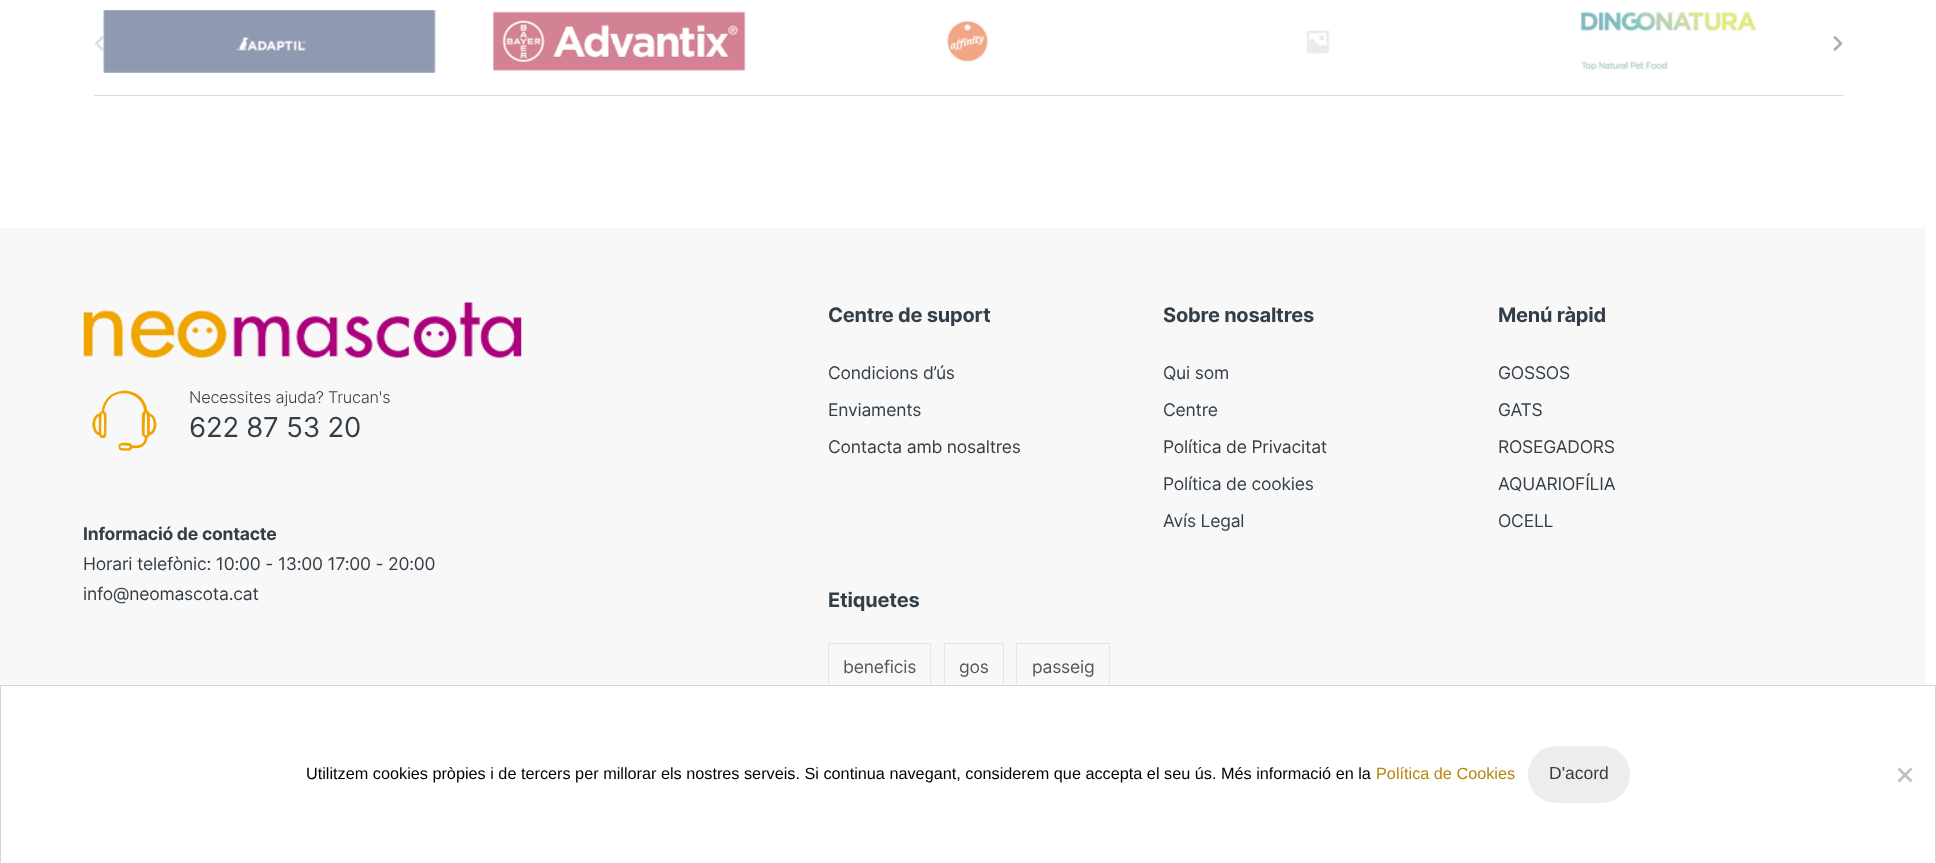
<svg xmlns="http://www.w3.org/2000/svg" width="1936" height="863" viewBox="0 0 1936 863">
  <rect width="100%" height="100%" fill="#ffffff"/>
  <rect x="94" y="95" width="1750" height="1" fill="#dddddd"/>
  <image x="103" y="10" width="333" height="63" href="img1.png"/>
  <image x="492" y="11" width="254" height="60" href="img2.png"/>
  <image x="947" y="20" width="42" height="42" href="img3.png"/>
  <image x="1306" y="30" width="24" height="24" href="img4.png"/>
  <image x="1580" y="11" width="177" height="60" href="img5.png"/>
  <image x="94" y="36" width="10" height="15" href="img6.png"/>
  <image x="1833" y="36" width="10" height="15" href="img7.png"/>
  <rect x="0" y="228" width="1926" height="457" fill="#f8f8f8"/>
  <image x="83" y="302" width="439" height="56" href="img8.png"/>
  <image x="92" y="390" width="65" height="61" href="img9.png"/>
  <text x="189" y="403" font-family="Inter" font-size="16.25" font-weight="300" letter-spacing="-0.2" fill="#333e48">Necessites ajuda? Trucan's</text>
  <text x="189" y="437" font-family="Inter" font-size="27.5" letter-spacing="-0.2" fill="#333e48">622 87 53 20</text>
  <text x="83" y="540" font-family="Inter" font-size="17.5" font-weight="bold" letter-spacing="-0.2" fill="#333e48">Informació de contacte</text>
  <text x="83" y="570" font-family="Inter" font-size="17.5" letter-spacing="-0.2" fill="#333e48">Horari telefònic: 10:00 - 13:00 17:00 - 20:00</text>
  <text x="83" y="600" font-family="Inter" font-size="17.5" letter-spacing="-0.2" fill="#333e48">info@neomascota.cat</text>
  <text x="828" y="322" font-family="Inter" font-size="20" font-weight="bold" letter-spacing="-0.2" fill="#333e48">Centre de suport</text>
  <text x="828" y="379" font-family="Inter" font-size="17.5" letter-spacing="-0.2" fill="#333e48">Condicions d’ús</text>
  <text x="828" y="416" font-family="Inter" font-size="17.5" letter-spacing="-0.2" fill="#333e48">Enviaments</text>
  <text x="828" y="453" font-family="Inter" font-size="17.5" letter-spacing="-0.2" fill="#333e48">Contacta amb nosaltres</text>
  <text x="1163" y="322" font-family="Inter" font-size="20" font-weight="bold" letter-spacing="-0.2" fill="#333e48">Sobre nosaltres</text>
  <text x="1163" y="379" font-family="Inter" font-size="17.5" letter-spacing="-0.2" fill="#333e48">Qui som</text>
  <text x="1163" y="416" font-family="Inter" font-size="17.5" letter-spacing="-0.2" fill="#333e48">Centre</text>
  <text x="1163" y="453" font-family="Inter" font-size="17.5" letter-spacing="-0.2" fill="#333e48">Política de Privacitat</text>
  <text x="1163" y="490" font-family="Inter" font-size="17.5" letter-spacing="-0.2" fill="#333e48">Política de cookies</text>
  <text x="1163" y="527" font-family="Inter" font-size="17.5" letter-spacing="-0.2" fill="#333e48">Avís Legal</text>
  <text x="1498" y="322" font-family="Inter" font-size="20" font-weight="bold" letter-spacing="-0.2" fill="#333e48">Menú ràpid</text>
  <text x="1498" y="379" font-family="Inter" font-size="17.5" letter-spacing="-0.2" fill="#333e48">GOSSOS</text>
  <text x="1498" y="416" font-family="Inter" font-size="17.5" letter-spacing="-0.2" fill="#333e48">GATS</text>
  <text x="1498" y="453" font-family="Inter" font-size="17.5" letter-spacing="-0.2" fill="#333e48">ROSEGADORS</text>
  <text x="1498" y="490" font-family="Inter" font-size="17.5" letter-spacing="-0.2" fill="#333e48">AQUARIOFÍLIA</text>
  <text x="1498" y="527" font-family="Inter" font-size="17.5" letter-spacing="-0.2" fill="#333e48">OCELL</text>
  <text x="828" y="607" font-family="Inter" font-size="20" font-weight="bold" letter-spacing="-0.2" fill="#333e48">Etiquetes</text>
  <rect x="828.5" y="643.5" width="102" height="47" fill="none" stroke="#e4e5e7"/>
  <text x="843" y="673" font-family="Inter" font-size="17.5" letter-spacing="-0.2" fill="#565656">beneficis</text>
  <rect x="944.5" y="643.5" width="59" height="47" fill="none" stroke="#e4e5e7"/>
  <text x="959" y="673" font-family="Inter" font-size="17.5" letter-spacing="-0.2" fill="#565656">gos</text>
  <rect x="1016.5" y="643.5" width="93" height="47" fill="none" stroke="#e4e5e7"/>
  <text x="1032" y="673" font-family="Inter" font-size="17.5" letter-spacing="-0.2" fill="#565656">passeig</text>
  <rect x="828" y="686" width="282" height="5" fill="#ffffff"/>
  <rect x="0.5" y="685.5" width="1935" height="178" fill="none" stroke="#d5d5d5"/>
  <text x="306" y="779" font-family="Liberation Sans" font-size="16.25" fill="#000000">Utilitzem cookies pròpies i de tercers per millorar els nostres serveis. Si continua navegant, considerem que accepta el seu ús. Més informació en la</text>
  <text x="1376" y="779" font-family="Liberation Sans" font-size="16.25" fill="#b8860b">Política de Cookies</text>
  <rect x="1528.5" y="746.5" width="101" height="56" rx="27.5" fill="#efecec" stroke="#efecec"/>
  <text x="1549" y="779" font-family="Liberation Sans" font-size="17.5" fill="#333e48">D'acord</text>
  <path d="M1910.5 767.5L1912.5 769.5L1899.5 782.5L1897.5 780.5Z" fill="#c0c0c0"/>
  <path d="M1897.5 769.5L1899.5 767.5L1912.5 780.5L1910.5 782.5Z" fill="#c0c0c0"/>
</svg>
